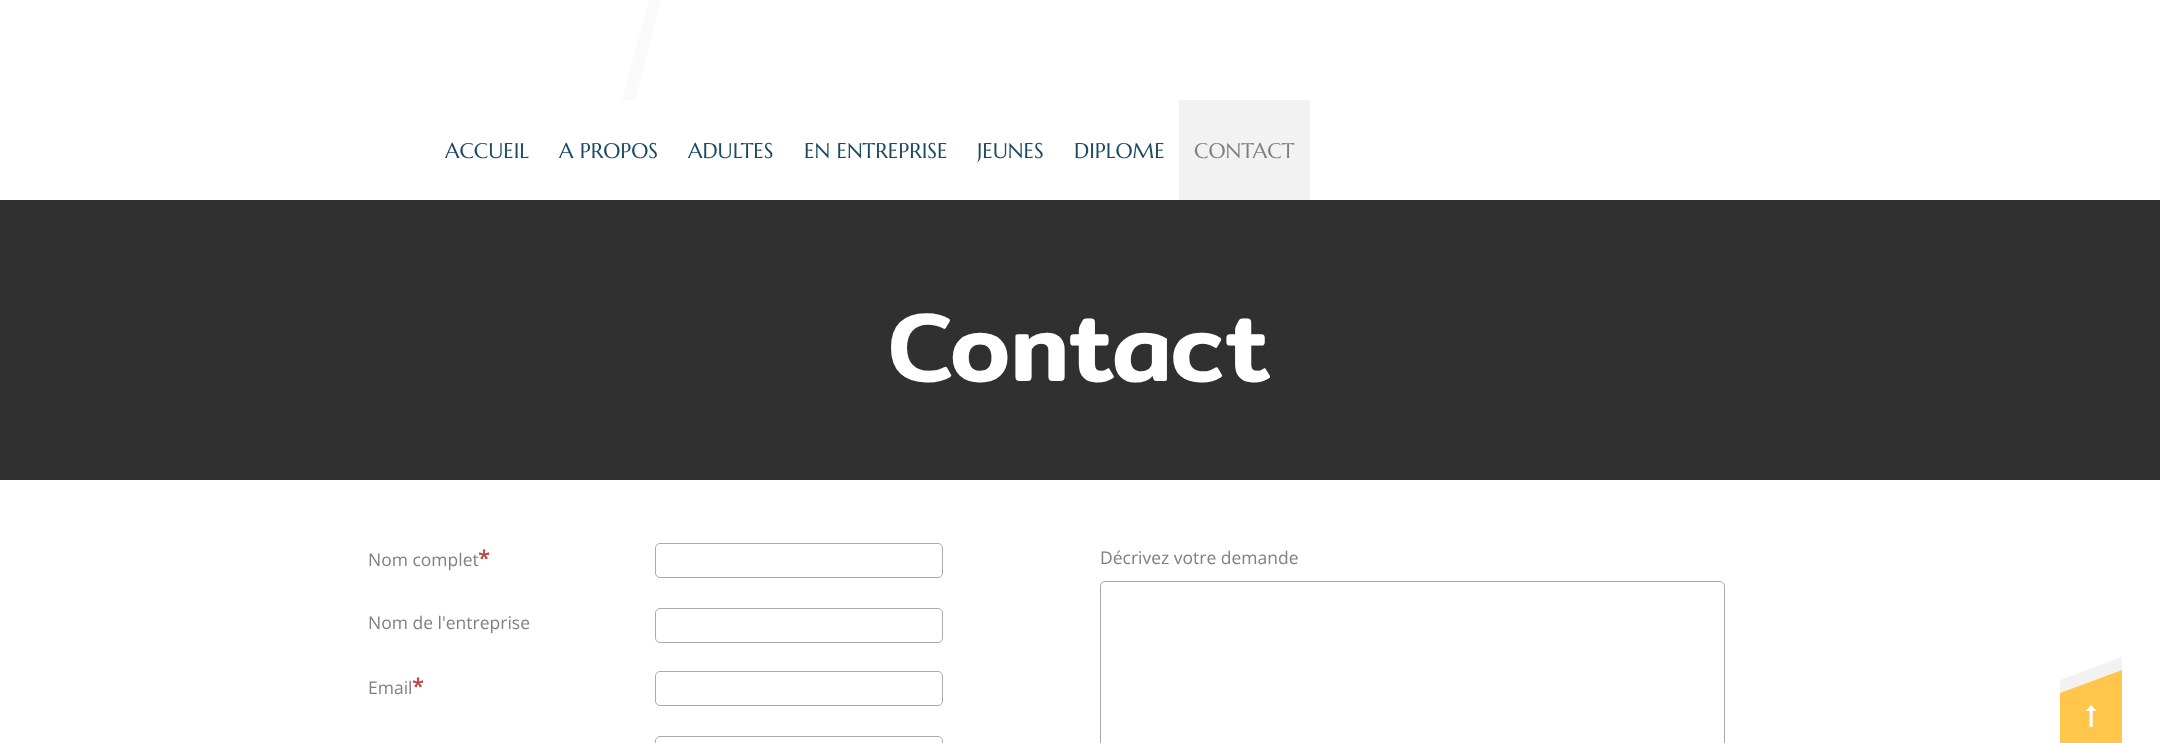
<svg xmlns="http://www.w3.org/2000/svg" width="2160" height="743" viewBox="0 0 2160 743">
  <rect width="100%" height="100%" fill="#ffffff"/>
  <path d="M622 100H635L661 0H649Z" fill="#fafafa"/>
  <text x="445" y="158" font-family="Marcellus" font-size="21.25" fill="#1b4961">ACCUEIL</text>
  <text x="559" y="158" font-family="Marcellus" font-size="21.25" fill="#1b4961">A PROPOS</text>
  <text x="688" y="158" font-family="Marcellus" font-size="21.25" fill="#1b4961">ADULTES</text>
  <text x="804" y="158" font-family="Marcellus" font-size="21.25" fill="#1b4961">EN ENTREPRISE</text>
  <text x="977" y="158" font-family="Marcellus" font-size="21.25" fill="#1b4961">JEUNES</text>
  <text x="1074" y="158" font-family="Marcellus" font-size="21.25" fill="#1b4961">DIPLOME</text>
  <rect x="1179" y="100" width="131" height="100" fill="#f2f2f2"/>
  <text x="1194" y="158" font-family="Marcellus" font-size="21.25" fill="#808080">CONTACT</text>
  <rect x="0" y="200" width="2160" height="280" fill="#303030"/>
  <text x="888" y="381" font-family="Mitr" font-size="97.5" font-weight="500" fill="#ffffff">Contact</text>
  <text x="368" y="566" font-family="Open Sans" font-size="17.5" fill="#808080">Nom complet</text>
  <text x="478" y="566" font-family="Open Sans" font-size="21" font-weight="bold" fill="#b94a48">*</text>
  <rect x="655.5" y="543.5" width="287" height="34" rx="4.5" fill="none" stroke="#aaaaaa"/>
  <text x="368" y="629" font-family="Open Sans" font-size="17.5" fill="#808080">Nom de l'entreprise</text>
  <rect x="655.5" y="608.5" width="287" height="34" rx="4.5" fill="none" stroke="#aaaaaa"/>
  <text x="368" y="694" font-family="Open Sans" font-size="17.5" fill="#808080">Email</text>
  <text x="412" y="694" font-family="Open Sans" font-size="21" font-weight="bold" fill="#b94a48">*</text>
  <rect x="655.5" y="671.5" width="287" height="34" rx="4.5" fill="none" stroke="#aaaaaa"/>
  <rect x="655.5" y="736.5" width="287" height="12" rx="4.5" fill="none" stroke="#aaaaaa"/>
  <text x="1100" y="564" font-family="Open Sans" font-size="17.5" fill="#808080">Décrivez votre demande</text>
  <rect x="1100.5" y="581.5" width="624" height="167" rx="4.5" fill="none" stroke="#aaaaaa"/>
  <path d="M2060 680V693L2122 670V657Z" fill="#f2f2f2"/>
  <path d="M2060 693L2122 670V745L2060 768Z" fill="#ffc64b"/>
  <image x="2086" y="705" width="10" height="22" href="img1.png"/>
</svg>
